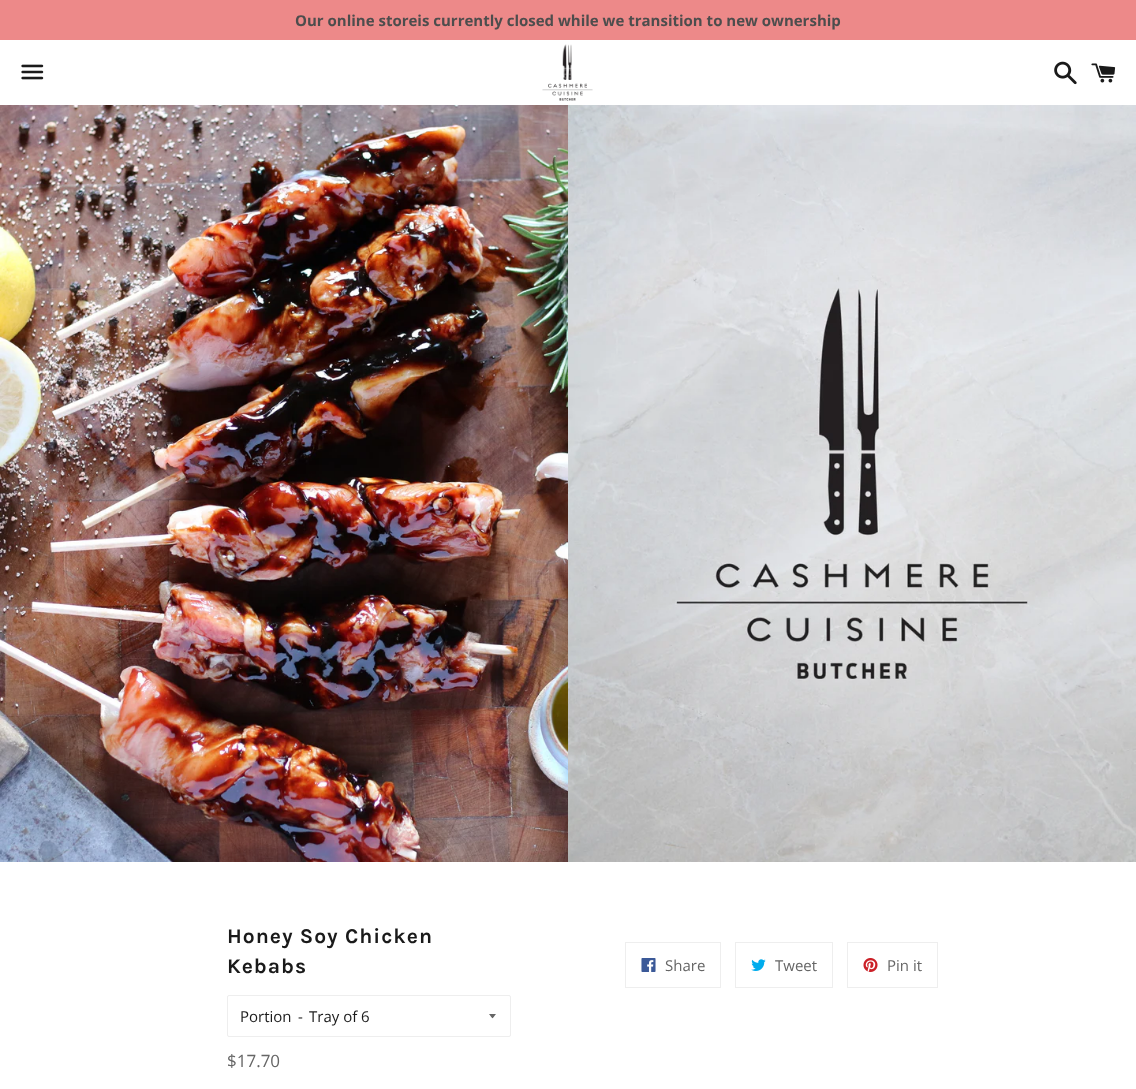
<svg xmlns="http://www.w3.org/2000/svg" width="1136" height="1089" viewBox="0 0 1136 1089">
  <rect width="100%" height="100%" fill="#ffffff"/>
  <rect x="0" y="0" width="1136" height="40" fill="#ed8989"/>
  <text x="295" y="26" font-family="Open Sans" font-size="15" font-weight="bold" fill="#4d4d4d">Our online storeis currently closed while we transition to new ownership</text>
  <image x="21" y="64" width="23" height="16" href="img1.png"/>
  <image x="542" y="44" width="51" height="57" href="img2.png"/>
  <image x="1054" y="61" width="23" height="24" href="img3.png"/>
  <image x="1091" y="63" width="25" height="20" href="img4.png"/>
  <image x="0" y="105" width="568" height="757" href="img5.png"/>
  <image x="568" y="105" width="568" height="757" href="img6.png"/>
  <text x="227" y="943" font-family="Karla" font-size="21" font-weight="bold" letter-spacing="1" fill="#1a1a1a">Honey Soy Chicken</text>
  <text x="227" y="973" font-family="Karla" font-size="21" font-weight="bold" letter-spacing="1" fill="#1a1a1a">Kebabs</text>
  <rect x="227.5" y="995.5" width="283" height="41" rx="1.5" fill="none" stroke="#eeeeee"/>
  <text x="240" y="1022" font-family="Open Sans" font-size="15" fill="#1a1a1a">Portion</text>
  <text x="298" y="1022" font-family="Open Sans" font-size="15" fill="#1a1a1a">-</text>
  <path d="M489 1014C493.5 1019.5 491.5 1019.5 496 1014Z" fill="#666666"/>
  <text x="309" y="1022" font-family="Open Sans" font-size="15" fill="#1a1a1a">Tray of 6</text>
  <text x="227" y="1067" font-family="Open Sans" font-size="17" fill="#666666">$17.70</text>
  <rect x="625.5" y="942.5" width="95" height="45" fill="none" stroke="#eeeeee"/>
  <image x="641" y="958" width="15" height="14" href="img7.png"/>
  <text x="665" y="971" font-family="Open Sans" font-size="15" fill="#666666">Share</text>
  <rect x="735.5" y="942.5" width="97" height="45" fill="none" stroke="#eeeeee"/>
  <image x="751" y="959" width="15" height="12" href="img8.png"/>
  <text x="775" y="971" font-family="Open Sans" font-size="15" fill="#666666">Tweet</text>
  <rect x="847.5" y="942.5" width="90" height="45" fill="none" stroke="#eeeeee"/>
  <image x="863" y="958" width="15" height="14" href="img9.png"/>
  <text x="887" y="971" font-family="Open Sans" font-size="15" fill="#666666">Pin it</text>
</svg>
